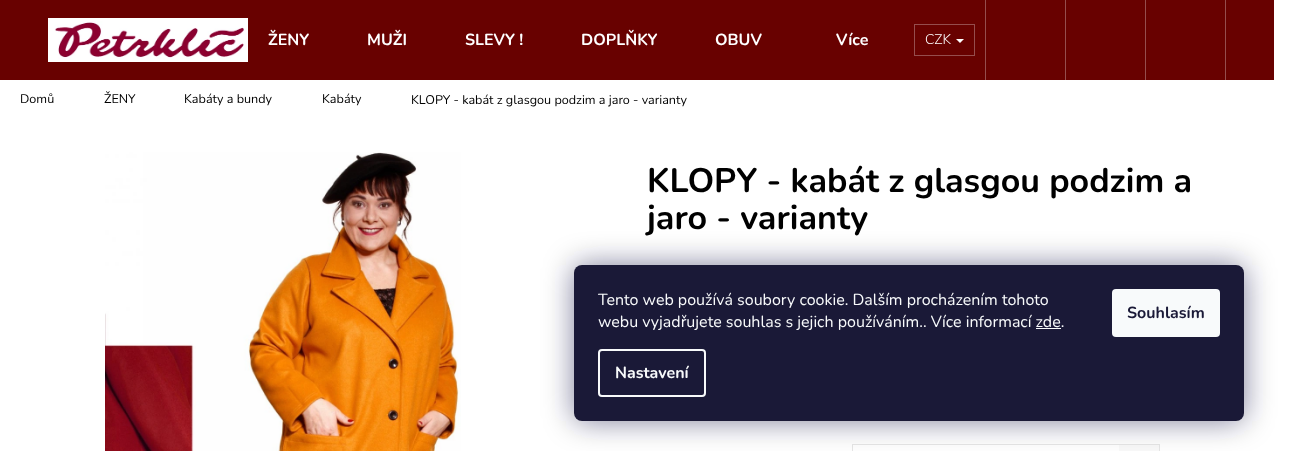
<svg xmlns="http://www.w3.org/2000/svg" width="1289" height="451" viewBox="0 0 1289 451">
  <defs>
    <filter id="blur1" x="-50%" y="-200%" width="200%" height="500%"><feGaussianBlur stdDeviation="15"/></filter>
  </defs>
  <rect width="100%" height="100%" fill="#ffffff"/>
  <rect x="0" y="0" width="1274" height="80" fill="#680100"/>
  <image x="48" y="18" width="200" height="44" href="img1.png"/>
  <text x="268" y="45" font-family="Nunito" font-size="16" font-weight="bold" fill="#ffffff">ŽENY</text>
  <text x="367" y="45" font-family="Nunito" font-size="16" font-weight="bold" fill="#ffffff">MUŽI</text>
  <text x="465" y="45" font-family="Nunito" font-size="16" font-weight="bold" fill="#ffffff">SLEVY !</text>
  <text x="581" y="45" font-family="Nunito" font-size="16" font-weight="bold" fill="#ffffff">DOPLŇKY</text>
  <text x="715" y="45" font-family="Nunito" font-size="16" font-weight="bold" fill="#ffffff">OBUV</text>
  <text x="836" y="45" font-family="Nunito" font-size="16" font-weight="bold" fill="#ffffff">Více</text>
  <rect x="1225" y="0" width="1" height="80" fill="#954d4d"/>
  <rect x="914.5" y="24.5" width="60" height="31" fill="none" stroke="#954d4d"/>
  <text x="925" y="44" font-family="Nunito" font-size="14" font-weight="300" fill="#ffffff">CZK</text>
  <path d="M956 39H964L960 43Z" fill="#ffffff"/>
  <rect x="985" y="0" width="1" height="80" fill="#954d4d"/>
  <rect x="1065" y="0" width="1" height="80" fill="#954d4d"/>
  <rect x="1145" y="0" width="1" height="80" fill="#954d4d"/>
  <text x="20" y="103" font-family="Nunito" font-size="12.6" fill="#000000">Domů</text>
  <text x="104" y="103" font-family="Nunito" font-size="12.6" fill="#000000">ŽENY</text>
  <text x="184" y="103" font-family="Nunito" font-size="12.6" fill="#000000">Kabáty a bundy</text>
  <text x="322" y="103" font-family="Nunito" font-size="12.6" fill="#000000">Kabáty</text>
  <text x="411" y="104" font-family="Nunito" font-size="12.6" fill="#000000">KLOPY - kabát z glasgou podzim a jaro - varianty</text>
  <image x="105" y="152" width="356" height="299" href="img2.png"/>
  <text x="647" y="192" font-family="Nunito" font-size="34" font-weight="bold" fill="#000000">KLOPY - kabát z glasgou podzim a</text>
  <text x="647" y="229" font-family="Nunito" font-size="34" font-weight="bold" fill="#000000">jaro - varianty</text>
  <rect x="1119" y="445" width="40" height="6" fill="#f9f9f9"/>
  <rect x="852.5" y="444.5" width="307" height="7" fill="none" stroke="#e6e6e6"/>
  <rect x="574" y="265" width="670" height="156" rx="8" fill="#1b1939" fill-opacity="0.5" filter="url(#blur1)"/>
  <rect x="574" y="265" width="670" height="156" rx="8" fill="#1a1937"/>
  <text x="598" y="305" font-family="Nunito" font-size="16" fill="#f8fafb">Tento web používá soubory cookie. Dalším procházením tohoto</text>
  <text x="598" y="327" font-family="Nunito" font-size="16" fill="#f8fafb">webu vyjadřujete souhlas s jejich používáním.. Více informací zde.</text>
  <rect x="1036" y="328" width="25" height="1" fill="#f8fafb"/>
  <rect x="599" y="350" width="106" height="46" rx="3" fill="none" stroke="#f8fafb" stroke-width="2"/>
  <text x="615" y="378" font-family="Nunito" font-size="16" font-weight="bold" fill="#f8fafb">Nastavení</text>
  <rect x="1112" y="289" width="108" height="48" rx="4" fill="#f8fafb"/>
  <text x="1127" y="318" font-family="Nunito" font-size="16" font-weight="bold" fill="#1a1937">Souhlasím</text>
</svg>
